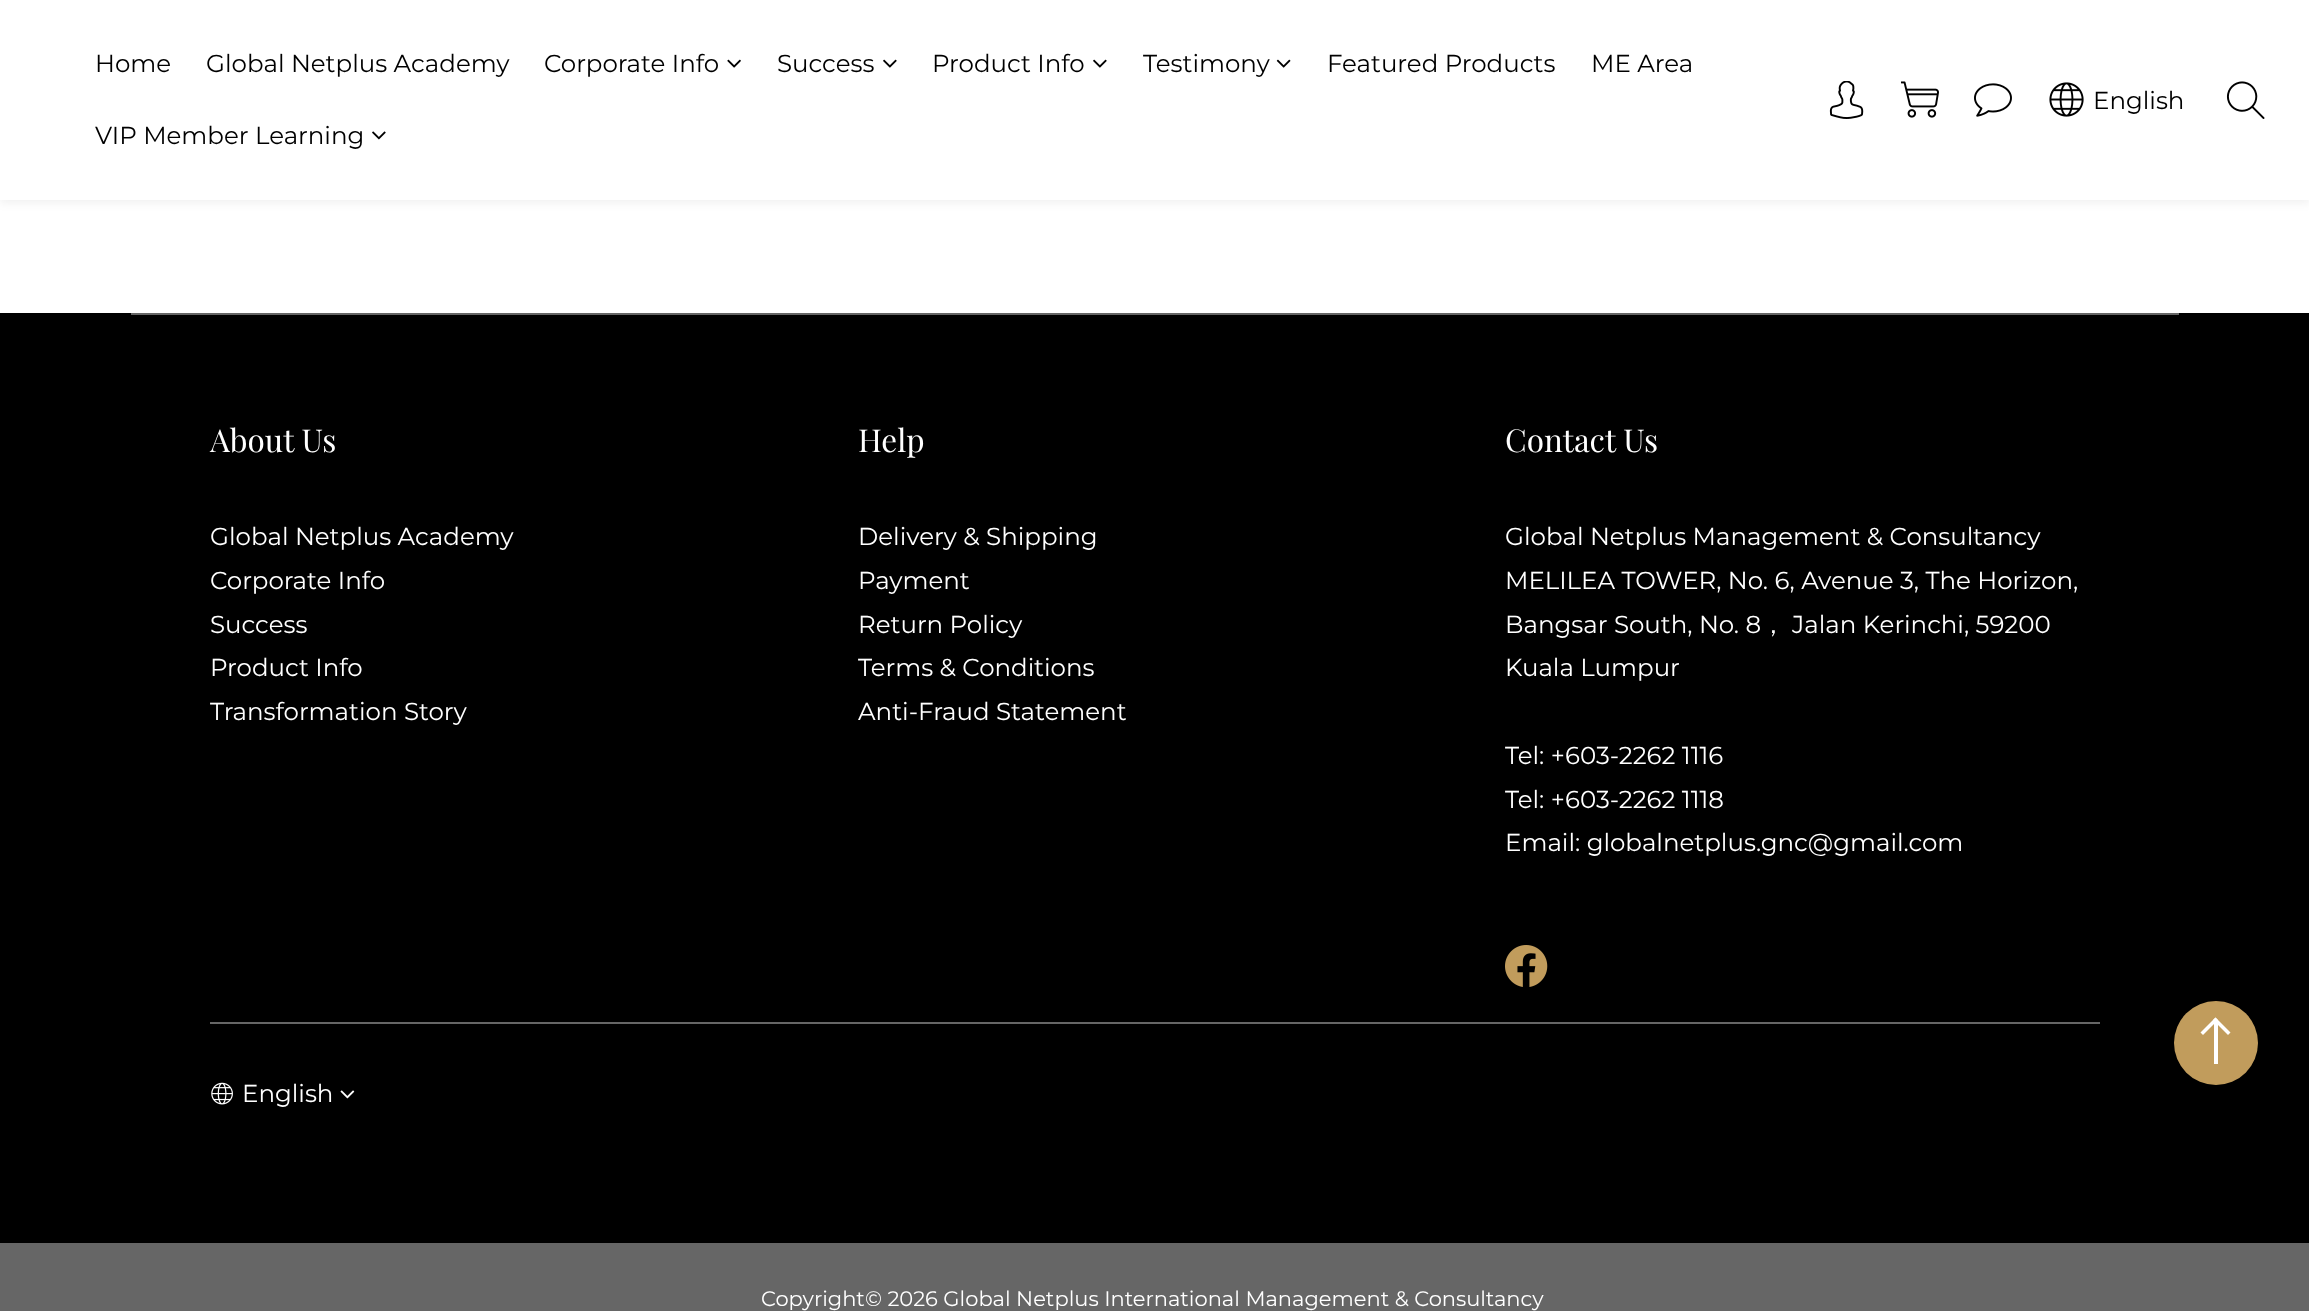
<svg xmlns="http://www.w3.org/2000/svg" width="2309" height="1311" viewBox="0 0 2309 1311">
  <defs>
    <filter id="blur1" x="-50%" y="-200%" width="200%" height="500%"><feGaussianBlur stdDeviation="5"/></filter>
  </defs>
  <rect width="100%" height="100%" fill="#ffffff"/>
  <rect x="0" y="4" width="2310" height="199" fill="#000000" fill-opacity="0.06" filter="url(#blur1)"/>
  <rect x="0" y="0" width="2309" height="200" fill="#ffffff"/>
  <text x="95" y="72" font-family="Montserrat" font-size="24.5" fill="#000000">Home</text>
  <text x="206" y="72" font-family="Montserrat" font-size="24.5" fill="#000000">Global Netplus Academy</text>
  <text x="544" y="72" font-family="Montserrat" font-size="24.5" fill="#000000">Corporate Info</text>
  <image x="727" y="59" width="14" height="9" href="img1.png"/>
  <text x="777" y="72" font-family="Montserrat" font-size="24.5" fill="#000000">Success</text>
  <image x="883" y="59" width="14" height="9" href="img2.png"/>
  <text x="932" y="72" font-family="Montserrat" font-size="24.5" fill="#000000">Product Info</text>
  <image x="1093" y="59" width="14" height="9" href="img2.png"/>
  <text x="1143" y="72" font-family="Montserrat" font-size="24.5" fill="#000000">Testimony</text>
  <image x="1276" y="59" width="15" height="9" href="img3.png"/>
  <text x="1327" y="72" font-family="Montserrat" font-size="24.5" fill="#000000">Featured Products</text>
  <text x="1591" y="72" font-family="Montserrat" font-size="24.5" fill="#000000">ME Area</text>
  <text x="95" y="144" font-family="Montserrat" font-size="24.5" fill="#000000">VIP Member Learning</text>
  <image x="372" y="131" width="14" height="9" href="img4.png"/>
  <image x="1829" y="81" width="35" height="38" href="img5.png"/>
  <image x="1901" y="81" width="38" height="37" href="img6.png"/>
  <image x="1974" y="83" width="38" height="34" href="img7.png"/>
  <image x="2049" y="82" width="35" height="35" href="img8.png"/>
  <text x="2093" y="109" font-family="Montserrat" font-size="24.5" fill="#000000">English</text>
  <image x="2226" y="81" width="39" height="38" href="img9.png"/>
  <rect x="0" y="313" width="2309" height="930" fill="#000000"/>
  <rect x="131" y="313" width="2048" height="2" fill="#666666"/>
  <text x="210" y="452" font-family="Playfair Display" font-size="31.5" fill="#ffffff">About Us</text>
  <text x="210" y="545" font-family="Montserrat" font-size="24.5" fill="#ffffff">Global Netplus Academy</text>
  <text x="210" y="589" font-family="Montserrat" font-size="24.5" fill="#ffffff">Corporate Info</text>
  <text x="210" y="633" font-family="Montserrat" font-size="24.5" fill="#ffffff">Success</text>
  <text x="210" y="676" font-family="Montserrat" font-size="24.5" fill="#ffffff">Product Info</text>
  <text x="210" y="720" font-family="Montserrat" font-size="24.5" fill="#ffffff">Transformation Story</text>
  <text x="858" y="452" font-family="Playfair Display" font-size="31.5" fill="#ffffff">Help</text>
  <text x="858" y="545" font-family="Montserrat" font-size="24.5" fill="#ffffff">Delivery &amp; Shipping</text>
  <text x="858" y="589" font-family="Montserrat" font-size="24.5" fill="#ffffff">Payment</text>
  <text x="858" y="633" font-family="Montserrat" font-size="24.5" fill="#ffffff">Return Policy</text>
  <text x="858" y="676" font-family="Montserrat" font-size="24.5" fill="#ffffff">Terms &amp; Conditions</text>
  <text x="858" y="720" font-family="Montserrat" font-size="24.5" fill="#ffffff">Anti-Fraud Statement</text>
  <text x="1505" y="452" font-family="Playfair Display" font-size="31.5" fill="#ffffff">Contact Us</text>
  <text x="1505" y="545" font-family="Montserrat" font-size="24.5" fill="#ffffff">Global Netplus Management &amp; Consultancy</text>
  <text x="1505" y="589" font-family="Montserrat" font-size="24.5" fill="#ffffff">MELILEA TOWER, No. 6, Avenue 3, The Horizon,</text>
  <text x="1505" y="633" font-family="Montserrat" font-size="24.5" fill="#ffffff">Bangsar South, No. 8</text>
  <text x="1761" y="633" font-family="WenQuanYi Zen Hei" font-size="24.5" font-weight="500" fill="#ffffff">，</text>
  <text x="1792" y="633" font-family="Montserrat" font-size="24.5" fill="#ffffff">Jalan Kerinchi, 59200</text>
  <text x="1505" y="676" font-family="Montserrat" font-size="24.5" fill="#ffffff">Kuala Lumpur</text>
  <text x="1505" y="764" font-family="Montserrat" font-size="24.5" fill="#ffffff">Tel: +603-2262 1116</text>
  <text x="1505" y="808" font-family="Montserrat" font-size="24.5" fill="#ffffff">Tel: +603-2262 1118</text>
  <text x="1505" y="851" font-family="Montserrat" font-size="24.5" fill="#ffffff">Email: globalnetplus.gnc@gmail.com</text>
  <image x="1505" y="945" width="43" height="42" href="img10.png"/>
  <rect x="210" y="1022" width="1890" height="2" fill="#666666"/>
  <image x="211" y="1082" width="22" height="23" href="img11.png"/>
  <text x="242" y="1102" font-family="Montserrat" font-size="24.5" fill="#ffffff">English</text>
  <image x="340" y="1090" width="15" height="9" href="img12.png"/>
  <rect x="0" y="1243" width="2309" height="68" fill="#666666"/>
  <text x="761" y="1306" font-family="Montserrat" font-size="21" fill="#ffffff">Copyright© 2026 Global Netplus International Management &amp; Consultancy</text>
  <circle cx="2216" cy="1043" r="42" fill="#c19c5c"/>
  <path d="M2215.5 1017.5L2230.5 1032.5L2228 1035L2213 1020Z" fill="#ffffff"/>
  <path d="M2215.5 1017.5L2218 1020L2203 1035L2200.5 1032.5Z" fill="#ffffff"/>
  <rect x="2214" y="1022" width="4" height="42" fill="#ffffff"/>
</svg>
